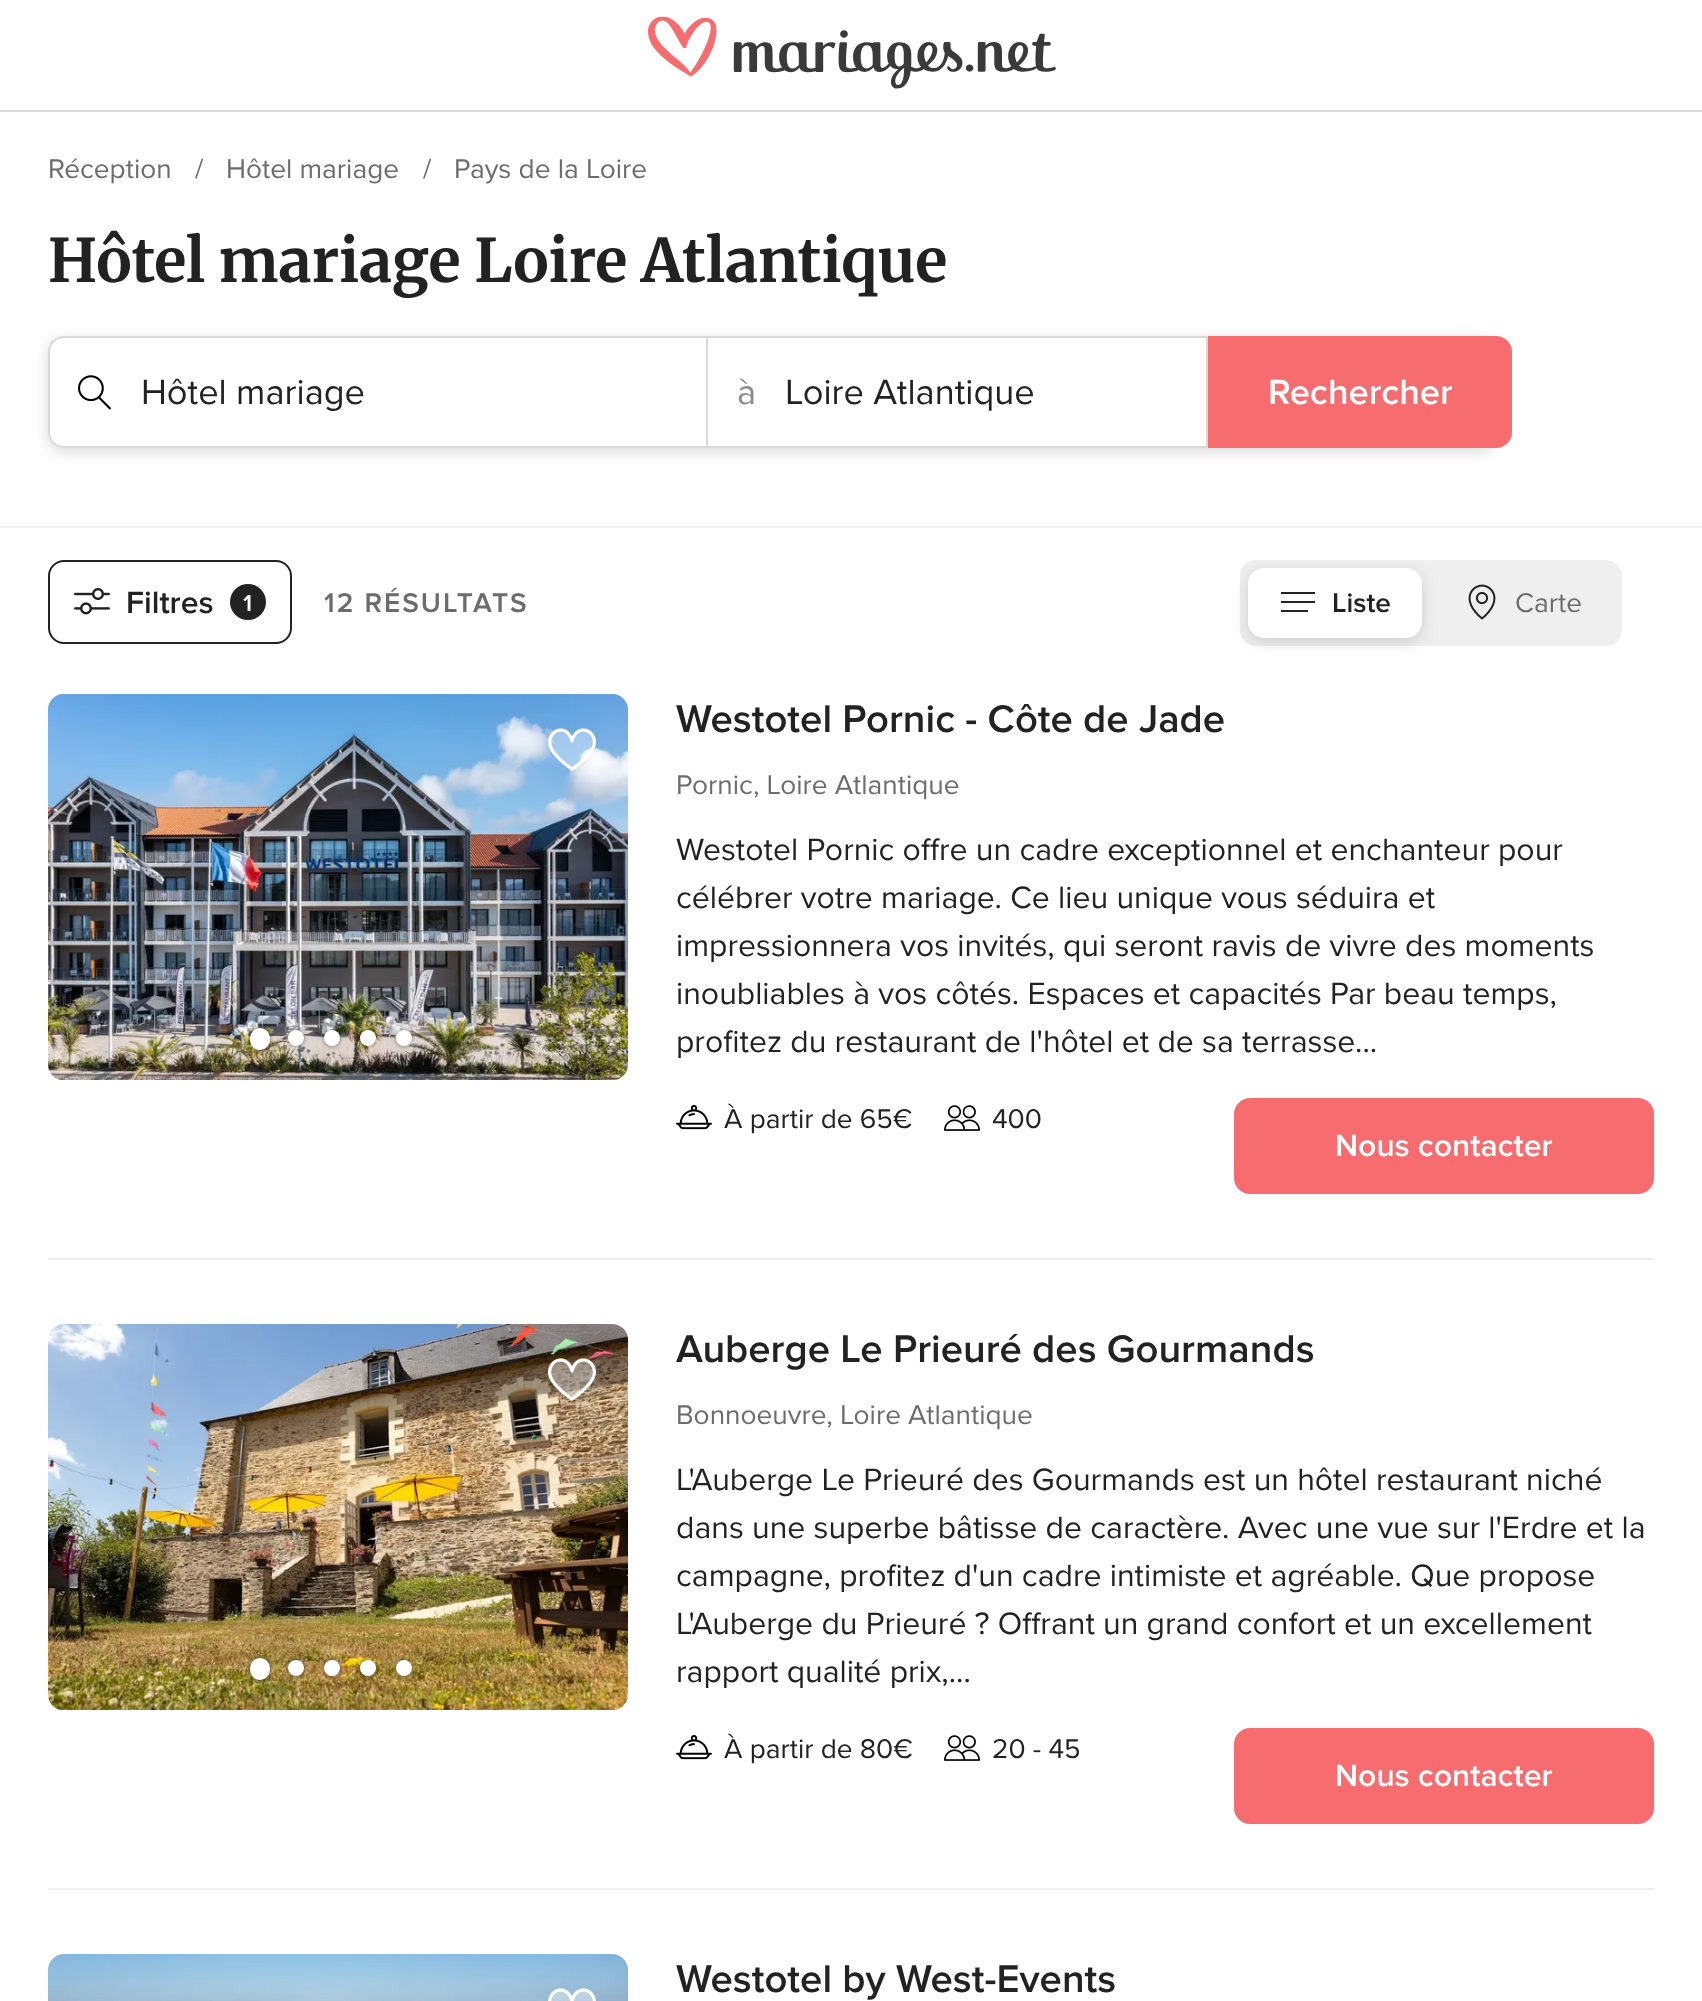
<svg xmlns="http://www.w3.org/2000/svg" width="1702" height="2001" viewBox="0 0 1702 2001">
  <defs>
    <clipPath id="clip1"><path d="M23 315H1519V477H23ZM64 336H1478C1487 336 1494 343 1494 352V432C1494 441 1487 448 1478 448H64C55 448 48 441 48 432V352C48 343 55 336 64 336Z" clip-rule="evenodd"/></clipPath>
    <filter id="blur1" x="-50%" y="-200%" width="200%" height="500%"><feGaussianBlur stdDeviation="8"/></filter>
    <clipPath id="clip2"><rect x="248" y="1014" width="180" height="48"/></clipPath>
    <filter id="blur2" x="-50%" y="-200%" width="200%" height="500%"><feGaussianBlur stdDeviation="2.5"/></filter>
    <filter id="blur3" x="-50%" y="-200%" width="200%" height="500%"><feGaussianBlur stdDeviation="2"/></filter>
    <clipPath id="clip3"><rect x="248" y="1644" width="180" height="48"/></clipPath>
  </defs>
  <rect width="100%" height="100%" fill="#ffffff"/>
  <image x="648" y="16" width="408" height="73" href="img1.png"/>
  <rect x="0" y="110" width="1702" height="2" fill="#d9d9d9"/>
  <text x="48" y="178" font-family="Proxima Nova" font-size="28" fill="#6c6c6c">Réception</text>
  <text x="195" y="178" font-family="Proxima Nova" font-size="28" fill="#6c6c6c">/</text>
  <text x="226" y="178" font-family="Proxima Nova" font-size="28" fill="#6c6c6c">Hôtel mariage</text>
  <text x="423" y="178" font-family="Proxima Nova" font-size="28" fill="#6c6c6c">/</text>
  <text x="454" y="178" font-family="Proxima Nova" font-size="28" fill="#6c6c6c">Pays de la Loire</text>
  <text x="48" y="282" font-family="Merriweather" font-size="60" font-weight="bold" fill="#222222">Hôtel mariage Loire Atlantique</text>
  <g clip-path="url(#clip1)">
    <rect x="48" y="340" width="1446" height="112" rx="16" fill="#000000" fill-opacity="0.15" filter="url(#blur1)"/>
  </g>
  <path d="M64 337H707V447H64C55.5 447 49 440.5 49 432V352C49 343.5 55.5 337 64 337Z" fill="#ffffff" stroke="#d9d9d9" stroke-width="2"/>
  <image x="78" y="375" width="33" height="35" href="img2.png"/>
  <text x="141" y="404" font-family="Proxima Nova" font-size="36.25" fill="#222222">Hôtel mariage</text>
  <rect x="708" y="336" width="500" height="2" fill="#d9d9d9"/>
  <rect x="1206" y="336" width="2" height="112" fill="#d9d9d9"/>
  <rect x="708" y="446" width="500" height="2" fill="#d9d9d9"/>
  <text x="737" y="404" font-family="Proxima Nova" font-size="36.25" fill="#8c8c8c">à</text>
  <text x="785" y="404" font-family="Proxima Nova" font-size="36.25" fill="#222222">Loire Atlantique</text>
  <path d="M1208 336H1496C1505 336 1512 343 1512 352V432C1512 441 1505 448 1496 448H1208Z" fill="#f76c6f"/>
  <text x="1268" y="404" font-family="Proxima Nova" font-size="36.25" font-weight="600" fill="#ffffff">Rechercher</text>
  <rect x="0" y="526" width="1702" height="2" fill="#efefef"/>
  <rect x="49" y="561" width="242" height="82" rx="15" fill="none" stroke="#222222" stroke-width="2"/>
  <image x="74" y="588" width="36" height="27" href="img3.png"/>
  <text x="126" y="613" font-family="Proxima Nova" font-size="32" font-weight="600" fill="#222222">Filtres</text>
  <circle cx="248" cy="602" r="18" fill="#222222"/>
  <text x="243" y="611" font-family="Proxima Nova" font-size="24" font-weight="600" fill="#ffffff">1</text>
  <text x="324" y="612" font-family="Proxima Nova" font-size="28" font-weight="600" letter-spacing="2" fill="#6c6c6c">12 RÉSULTATS</text>
  <rect x="1240" y="560" width="382" height="86" rx="16" fill="#efefef"/>
  <rect x="1248" y="572" width="174" height="70" rx="16" fill="#000000" fill-opacity="0.15" filter="url(#blur1)"/>
  <rect x="1248" y="568" width="174" height="70" rx="16" fill="#ffffff"/>
  <path d="M1281 594V592H1315V594ZM1281 603V601H1315V603ZM1281 612V610H1308V612Z" fill="#222222"/>
  <text x="1332" y="612" font-family="Proxima Nova" font-size="28" font-weight="600" fill="#222222">Liste</text>
  <image x="1468" y="584" width="28" height="36" href="img4.png"/>
  <text x="1515" y="612" font-family="Proxima Nova" font-size="28" fill="#6c6c6c">Carte</text>
  <rect x="48" y="1258" width="1606" height="2" fill="#efefef"/>
  <image x="48" y="694" width="580" height="386" href="img5.png"/>
  <g clip-path="url(#clip2)">
    <rect x="250" y="1028" width="20" height="22" rx="10" fill="#000000" fill-opacity="0.5" filter="url(#blur2)"/>
  </g>
  <rect x="250" y="1028" width="20" height="22" rx="10" fill="#ffffff"/>
  <rect x="288" y="1030" width="16" height="16" rx="8" fill="#000000" fill-opacity="0.5" filter="url(#blur3)"/>
  <circle cx="296" cy="1038" r="8" fill="#ffffff"/>
  <rect x="324" y="1030" width="16" height="16" rx="8" fill="#000000" fill-opacity="0.5" filter="url(#blur3)"/>
  <circle cx="332" cy="1038" r="8" fill="#ffffff"/>
  <rect x="360" y="1030" width="16" height="16" rx="8" fill="#000000" fill-opacity="0.5" filter="url(#blur3)"/>
  <circle cx="368" cy="1038" r="8" fill="#ffffff"/>
  <rect x="396" y="1030" width="16" height="16" rx="8" fill="#000000" fill-opacity="0.5" filter="url(#blur3)"/>
  <circle cx="404" cy="1038" r="8" fill="#ffffff"/>
  <image x="548" y="728" width="48" height="43" href="img6.png"/>
  <text x="676" y="732" font-family="Proxima Nova" font-size="40" font-weight="600" fill="#222222">Westotel Pornic - Côte de Jade</text>
  <text x="676" y="794" font-family="Proxima Nova" font-size="28" fill="#6c6c6c">Pornic, Loire Atlantique</text>
  <text x="676" y="860" font-family="Proxima Nova" font-size="32" fill="#222222">Westotel Pornic offre un cadre exceptionnel et enchanteur pour</text>
  <text x="676" y="908" font-family="Proxima Nova" font-size="32" fill="#222222">célébrer votre mariage. Ce lieu unique vous séduira et</text>
  <text x="676" y="956" font-family="Proxima Nova" font-size="32" fill="#222222">impressionnera vos invités, qui seront ravis de vivre des moments</text>
  <text x="676" y="1004" font-family="Proxima Nova" font-size="32" fill="#222222">inoubliables à vos côtés. Espaces et capacités Par beau temps,</text>
  <text x="676" y="1052" font-family="Proxima Nova" font-size="32" fill="#222222">profitez du restaurant de l'hôtel et de sa terrasse...</text>
  <image x="676" y="1105" width="36" height="25" href="img7.png"/>
  <text x="724" y="1128" font-family="Proxima Nova" font-size="28" fill="#222222">À partir de 65€</text>
  <image x="944" y="1105" width="36" height="26" href="img8.png"/>
  <text x="992" y="1128" font-family="Proxima Nova" font-size="28" fill="#222222">400</text>
  <rect x="1235" y="1099" width="418" height="94" rx="15" fill="#f76c6f" stroke="#f76c6f" stroke-width="2"/>
  <text x="1335" y="1156" font-family="Proxima Nova" font-size="32" font-weight="600" fill="#ffffff">Nous contacter</text>
  <rect x="48" y="1888" width="1606" height="2" fill="#efefef"/>
  <image x="48" y="1324" width="580" height="386" href="img9.png"/>
  <g clip-path="url(#clip3)">
    <rect x="250" y="1658" width="20" height="22" rx="10" fill="#000000" fill-opacity="0.5" filter="url(#blur2)"/>
  </g>
  <rect x="250" y="1658" width="20" height="22" rx="10" fill="#ffffff"/>
  <rect x="288" y="1660" width="16" height="16" rx="8" fill="#000000" fill-opacity="0.5" filter="url(#blur3)"/>
  <circle cx="296" cy="1668" r="8" fill="#ffffff"/>
  <rect x="324" y="1660" width="16" height="16" rx="8" fill="#000000" fill-opacity="0.5" filter="url(#blur3)"/>
  <circle cx="332" cy="1668" r="8" fill="#ffffff"/>
  <rect x="360" y="1660" width="16" height="16" rx="8" fill="#000000" fill-opacity="0.5" filter="url(#blur3)"/>
  <circle cx="368" cy="1668" r="8" fill="#ffffff"/>
  <rect x="396" y="1660" width="16" height="16" rx="8" fill="#000000" fill-opacity="0.5" filter="url(#blur3)"/>
  <circle cx="404" cy="1668" r="8" fill="#ffffff"/>
  <image x="548" y="1358" width="48" height="43" href="img10.png"/>
  <text x="676" y="1362" font-family="Proxima Nova" font-size="40" font-weight="600" fill="#222222">Auberge Le Prieuré des Gourmands</text>
  <text x="676" y="1424" font-family="Proxima Nova" font-size="28" fill="#6c6c6c">Bonnoeuvre, Loire Atlantique</text>
  <text x="676" y="1490" font-family="Proxima Nova" font-size="32" fill="#222222">L'Auberge Le Prieuré des Gourmands est un hôtel restaurant niché</text>
  <text x="676" y="1538" font-family="Proxima Nova" font-size="32" fill="#222222">dans une superbe bâtisse de caractère. Avec une vue sur l'Erdre et la</text>
  <text x="676" y="1586" font-family="Proxima Nova" font-size="32" fill="#222222">campagne, profitez d'un cadre intimiste et agréable. Que propose</text>
  <text x="676" y="1634" font-family="Proxima Nova" font-size="32" fill="#222222">L'Auberge du Prieuré ? Offrant un grand confort et un excellement</text>
  <text x="676" y="1682" font-family="Proxima Nova" font-size="32" fill="#222222">rapport qualité prix,...</text>
  <image x="676" y="1735" width="36" height="25" href="img7.png"/>
  <text x="724" y="1758" font-family="Proxima Nova" font-size="28" fill="#222222">À partir de 80€</text>
  <image x="944" y="1735" width="36" height="26" href="img8.png"/>
  <text x="992" y="1758" font-family="Proxima Nova" font-size="28" fill="#222222">20 - 45</text>
  <rect x="1235" y="1729" width="418" height="94" rx="15" fill="#f76c6f" stroke="#f76c6f" stroke-width="2"/>
  <text x="1335" y="1786" font-family="Proxima Nova" font-size="32" font-weight="600" fill="#ffffff">Nous contacter</text>
  <image x="48" y="1954" width="580" height="47" href="img11.png"/>
  <image x="548" y="1988" width="48" height="13" href="img12.png"/>
  <text x="676" y="1992" font-family="Proxima Nova" font-size="40" font-weight="600" fill="#222222">Westotel by West-Events</text>
</svg>
